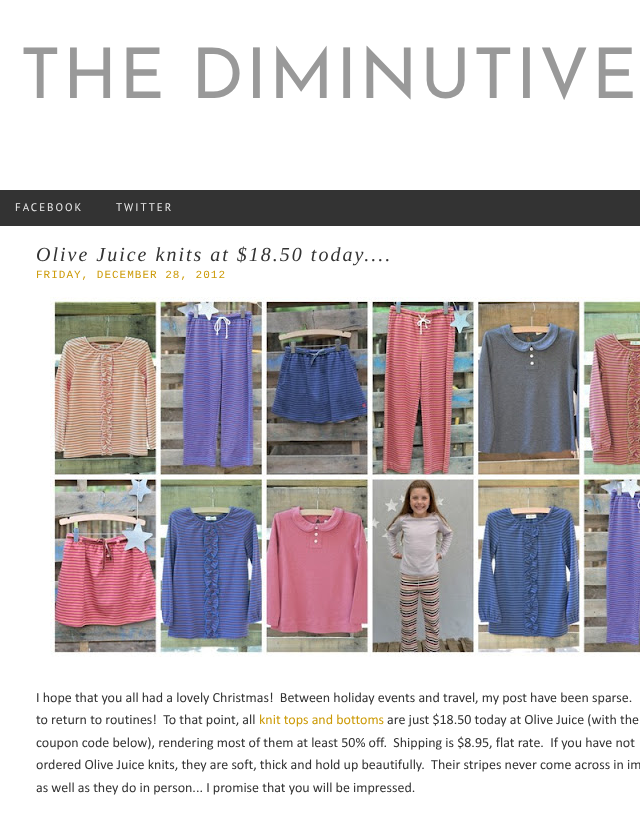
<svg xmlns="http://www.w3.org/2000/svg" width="640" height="826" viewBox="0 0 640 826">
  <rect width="100%" height="100%" fill="#ffffff"/>
  <text x="20" y="98" font-family="Josefin Sans" font-size="70" font-weight="100" letter-spacing="2" fill="#999999">THE DIMINUTIVE</text>
  <rect x="0" y="190" width="640" height="36" fill="#333333"/>
  <text x="15" y="211" font-family="PT Sans" font-size="11" letter-spacing="2" fill="#eeeeee">FACEBOOK</text>
  <text x="116" y="211" font-family="PT Sans" font-size="11" letter-spacing="2" fill="#eeeeee">TWITTER</text>
  <text x="36" y="261" font-family="Liberation Serif" font-size="20" font-style="italic" letter-spacing="2" fill="#333333">Olive Juice knits at $18.50 today....</text>
  <text x="36" y="278" font-family="Liberation Mono" font-size="11" letter-spacing="1" fill="#cc9a06">FRIDAY, DECEMBER 28, 2012</text>
  <image x="50" y="297" width="590" height="360" href="img1.png"/>
  <text x="36" y="702" font-family="Calibri" font-size="14" fill="#333333" xml:space="preserve">I hope that you all had a lovely Christmas!  Between holiday events and travel, my post have been sparse.</text>
  <text x="36" y="724" font-family="Calibri" font-size="14" fill="#333333" xml:space="preserve">to return to routines!  To that point, all</text>
  <text x="259" y="724" font-family="Calibri" font-size="14" fill="#cc9a06">knit tops and bottoms</text>
  <text x="387" y="724" font-family="Calibri" font-size="14" fill="#333333">are just $18.50 today at Olive Juice (with the</text>
  <text x="36" y="747" font-family="Calibri" font-size="14" fill="#333333" xml:space="preserve">coupon code below), rendering most of them at least 50% off.  Shipping is $8.95, flat rate.  If you have not</text>
  <text x="36" y="769" font-family="Calibri" font-size="14" fill="#333333" xml:space="preserve">ordered Olive Juice knits, they are soft, thick and hold up beautifully.  Their stripes never come across in im</text>
  <text x="36" y="792" font-family="Calibri" font-size="14" fill="#333333">as well as they do in person... I promise that you will be impressed.</text>
</svg>
